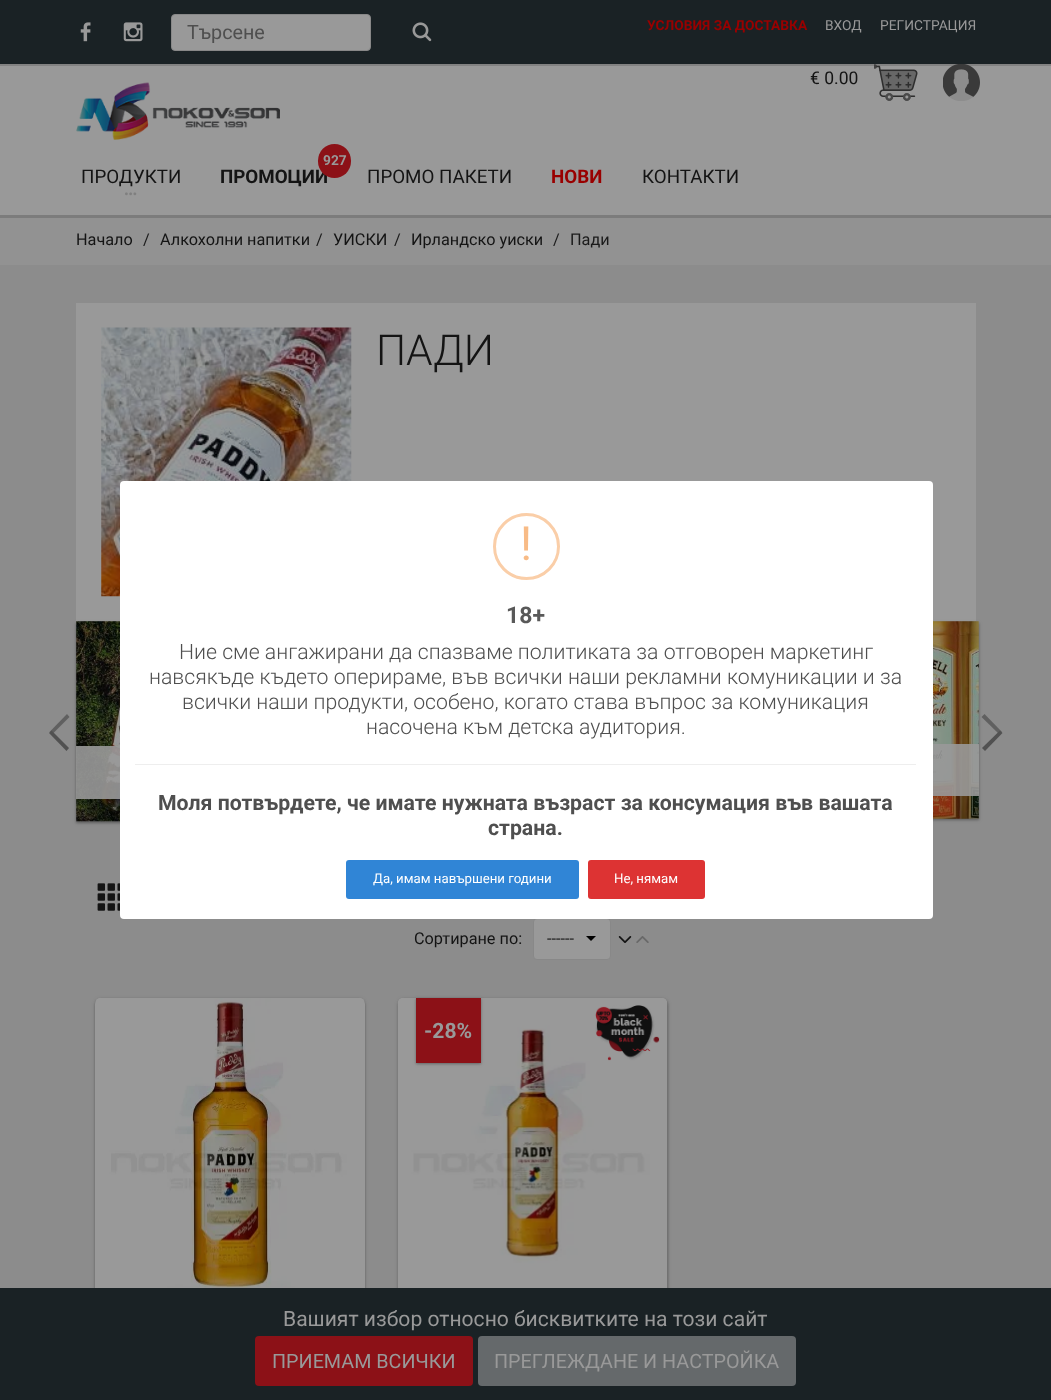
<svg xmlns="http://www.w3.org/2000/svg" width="1051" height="1400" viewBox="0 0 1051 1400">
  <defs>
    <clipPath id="clip1"><rect x="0" y="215" width="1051" height="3"/></clipPath>
    <filter id="blur1" x="-50%" y="-200%" width="200%" height="500%"><feGaussianBlur stdDeviation="0.5"/></filter>
    <filter id="blur2" x="-50%" y="-200%" width="200%" height="500%"><feGaussianBlur stdDeviation="1"/></filter>
    <filter id="blur3" x="-50%" y="-200%" width="200%" height="500%"><feGaussianBlur stdDeviation="2"/></filter>
  </defs>
  <rect width="100%" height="100%" fill="#999999"/>
  <rect x="0" y="215" width="1051" height="50" fill="#929292"/>
  <g clip-path="url(#clip1)">
    <rect x="0" y="3" width="1051" height="215" fill="#000000" fill-opacity="0.15" filter="url(#blur1)"/>
  </g>
  <rect x="0" y="3" width="1051" height="63" fill="#000000" fill-opacity="0.15" filter="url(#blur1)"/>
  <rect x="0" y="0" width="1051" height="64" fill="#1a2225"/>
  <image x="80" y="22" width="11" height="20" href="img1.png"/>
  <image x="123" y="22" width="20" height="20" href="img2.png"/>
  <rect x="171.5" y="14.5" width="199" height="36" rx="3.5" fill="#999999" stroke="#888888"/>
  <text x="187" y="39" font-family="Roboto" font-size="19.75" fill="#4f4f4f">Търсене</text>
  <image x="412" y="22" width="20" height="20" href="img3.png"/>
  <text x="647" y="30" font-family="Roboto" font-size="13.75" font-weight="bold" fill="#990000">УСЛОВИЯ ЗА ДОСТАВКА</text>
  <text x="825" y="30" font-family="Roboto" font-size="13.75" fill="#999999">ВХОД</text>
  <text x="880" y="30" font-family="Roboto" font-size="13.75" fill="#999999">РЕГИСТРАЦИЯ</text>
  <text x="810" y="84" font-family="Roboto" font-size="17.5" fill="#141414">€ 0.00</text>
  <image x="874" y="64" width="44" height="37" href="img4.png"/>
  <image x="943" y="64" width="37" height="37" href="img5.png"/>
  <image x="76" y="82" width="204" height="58" href="img6.png"/>
  <text x="81" y="183" font-family="Roboto" font-size="18.75" fill="#141414">ПРОДУКТИ</text>
  <image x="125" y="192" width="12" height="4" href="img7.png"/>
  <text x="220" y="183" font-family="Roboto" font-size="18.75" font-weight="bold" fill="#141414">ПРОМОЦИИ</text>
  <rect x="318" y="144" width="33" height="34" rx="16.5" fill="#8c1117"/>
  <text x="323" y="165" font-family="Roboto" font-size="13.75" font-weight="bold" fill="#999999">927</text>
  <text x="367" y="183" font-family="Roboto" font-size="18.75" fill="#141414">ПРОМО ПАКЕТИ</text>
  <text x="551" y="183" font-family="Roboto" font-size="18.75" font-weight="bold" fill="#990000">НОВИ</text>
  <text x="642" y="183" font-family="Roboto" font-size="18.75" fill="#141414">КОНТАКТИ</text>
  <text x="76" y="245" font-family="Roboto" font-size="16.25" fill="#141414">Начало</text>
  <text x="143" y="245" font-family="Roboto" font-size="16.25" fill="#1a1a1a">/</text>
  <text x="160" y="245" font-family="Roboto" font-size="16.25" fill="#141414">Алкохолни напитки</text>
  <text x="316" y="245" font-family="Roboto" font-size="16.25" fill="#1a1a1a">/</text>
  <text x="333" y="245" font-family="Roboto" font-size="16.25" fill="#141414">УИСКИ</text>
  <text x="394" y="245" font-family="Roboto" font-size="16.25" fill="#1a1a1a">/</text>
  <text x="411" y="245" font-family="Roboto" font-size="16.25" fill="#141414">Ирландско уиски</text>
  <text x="553" y="245" font-family="Roboto" font-size="16.25" fill="#1a1a1a">/</text>
  <text x="570" y="245" font-family="Roboto" font-size="16.25" fill="#1a1a1a">Пади</text>
  <rect x="0" y="265" width="1051" height="1023" fill="#8c8c8c"/>
  <rect x="76" y="303" width="900" height="318" fill="#999999"/>
  <image x="101" y="327" width="251" height="270" href="img8.png"/>
  <text x="376" y="365" font-family="Roboto" font-size="42.5" font-weight="300" fill="#141414">ПАДИ</text>
  <path d="M52 734.5L49.5 732L67 714L69.5 717Z" fill="#606060"/>
  <path d="M49 733L51.5 730.5L69 748L66.5 751Z" fill="#515151"/>
  <rect x="76" y="623" width="198" height="200" fill="#000000" fill-opacity="0.24" filter="url(#blur2)"/>
  <rect x="76" y="623" width="198" height="200" fill="#000000" fill-opacity="0.12" filter="url(#blur3)"/>
  <image x="76" y="621" width="44" height="201" href="img9.png"/>
  <rect x="76" y="746" width="44" height="53" fill="#999999" fill-opacity="0.9"/>
  <rect x="781" y="623" width="198" height="197" fill="#000000" fill-opacity="0.24" filter="url(#blur2)"/>
  <rect x="781" y="623" width="198" height="197" fill="#000000" fill-opacity="0.12" filter="url(#blur3)"/>
  <image x="933" y="621" width="46" height="198" href="img10.png"/>
  <rect x="933" y="744" width="46" height="52" fill="#999999" fill-opacity="0.9"/>
  <path d="M1002 732L999.5 734.5L981.5 717L984.5 714Z" fill="#606060"/>
  <path d="M1000 730.5L1002.5 733L985 751L982 748Z" fill="#515151"/>
  <image x="97" y="883" width="23" height="28" href="img11.png"/>
  <text x="414" y="944" font-family="Roboto" font-size="16.25" fill="#141414">Сортиране по:</text>
  <rect x="533.5" y="918.5" width="77" height="41" rx="3.5" fill="#999999" stroke="#888888"/>
  <text x="547" y="944" font-family="Roboto" font-size="16.25" fill="#1a1a1a">------</text>
  <path d="M586 936H596L591 941Z" fill="#000000"/>
  <image x="618" y="936" width="14" height="7" href="img12.png"/>
  <image x="636" y="936" width="13" height="7" href="img13.png"/>
  <rect x="95" y="999" width="270" height="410" rx="6" fill="#000000" fill-opacity="0.24" filter="url(#blur2)"/>
  <rect x="95" y="999" width="270" height="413" rx="6" fill="#000000" fill-opacity="0.12" filter="url(#blur3)"/>
  <image x="95" y="998" width="270" height="290" href="img14.png"/>
  <rect x="398" y="999" width="270" height="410" rx="6" fill="#000000" fill-opacity="0.24" filter="url(#blur2)"/>
  <rect x="398" y="999" width="270" height="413" rx="6" fill="#000000" fill-opacity="0.12" filter="url(#blur3)"/>
  <image x="397" y="998" width="271" height="290" href="img15.png"/>
  <rect x="416" y="999" width="65" height="65" fill="#000000" fill-opacity="0.24" filter="url(#blur2)"/>
  <rect x="416" y="999" width="65" height="65" fill="#000000" fill-opacity="0.12" filter="url(#blur3)"/>
  <rect x="416" y="998" width="65" height="65" fill="#8c1117"/>
  <text x="424" y="1038" font-family="Roboto" font-size="21.1" font-weight="bold" fill="#999999">-28%</text>
  <image x="595" y="1005" width="65" height="56" href="img16.png"/>
  <rect x="0" y="1288" width="1051" height="112" fill="#1a2225"/>
  <text x="283" y="1326" font-family="Roboto" font-size="21.1" fill="#999999">Вашият избор относно бисквитките на този сайт</text>
  <rect x="255" y="1336" width="218" height="50" rx="4" fill="#8c1117"/>
  <text x="272" y="1368" font-family="Roboto" font-size="19.75" fill="#999999">ПРИЕМАМ ВСИЧКИ</text>
  <rect x="478" y="1336" width="318" height="50" rx="4" fill="#65696b"/>
  <text x="494" y="1368" font-family="Roboto" font-size="19.75" fill="#999999">ПРЕГЛЕЖДАНЕ И НАСТРОЙКА</text>
  <rect x="120" y="481" width="813" height="438" rx="4" fill="#ffffff"/>
  <circle cx="526.5" cy="546.5" r="32" fill="none" stroke="#facea8" stroke-width="3"/>
  <text x="520" y="560" font-family="Roboto" font-size="47" fill="#f8bb86">!</text>
  <text x="506" y="623" font-family="Roboto" font-size="23" font-weight="bold" fill="#595959">18+</text>
  <text x="179" y="659" font-family="Roboto" font-size="21.25" font-weight="300" fill="#4f4f4f">Ние сме ангажирани да спазваме политиката за отговорен маркетинг</text>
  <text x="149" y="684" font-family="Roboto" font-size="21.25" font-weight="300" fill="#4f4f4f">навсякъде където оперираме, във всички наши рекламни комуникации и за</text>
  <text x="182" y="709" font-family="Roboto" font-size="21.25" font-weight="300" fill="#4f4f4f">всички наши продукти, особено, когато става въпрос за комуникация</text>
  <text x="366" y="734" font-family="Roboto" font-size="21.25" font-weight="300" fill="#4f4f4f">насочена към детска аудитория.</text>
  <rect x="135" y="764" width="781" height="1" fill="#eeeeee"/>
  <text x="158" y="810" font-family="Roboto" font-size="21.25" font-weight="bold" fill="#4f4f4f">Моля потвърдете, че имате нужната възраст за консумация във вашата</text>
  <text x="488" y="835" font-family="Roboto" font-size="21.25" font-weight="bold" fill="#4f4f4f">страна.</text>
  <rect x="346" y="860" width="233" height="39" rx="3" fill="#3085d6"/>
  <text x="373" y="883" font-family="Roboto" font-size="13.25" fill="#ffffff">Да, имам навършени години</text>
  <rect x="588" y="860" width="117" height="39" rx="3" fill="#dd3333"/>
  <text x="614" y="883" font-family="Roboto" font-size="13.25" fill="#ffffff">Не, нямам</text>
</svg>
